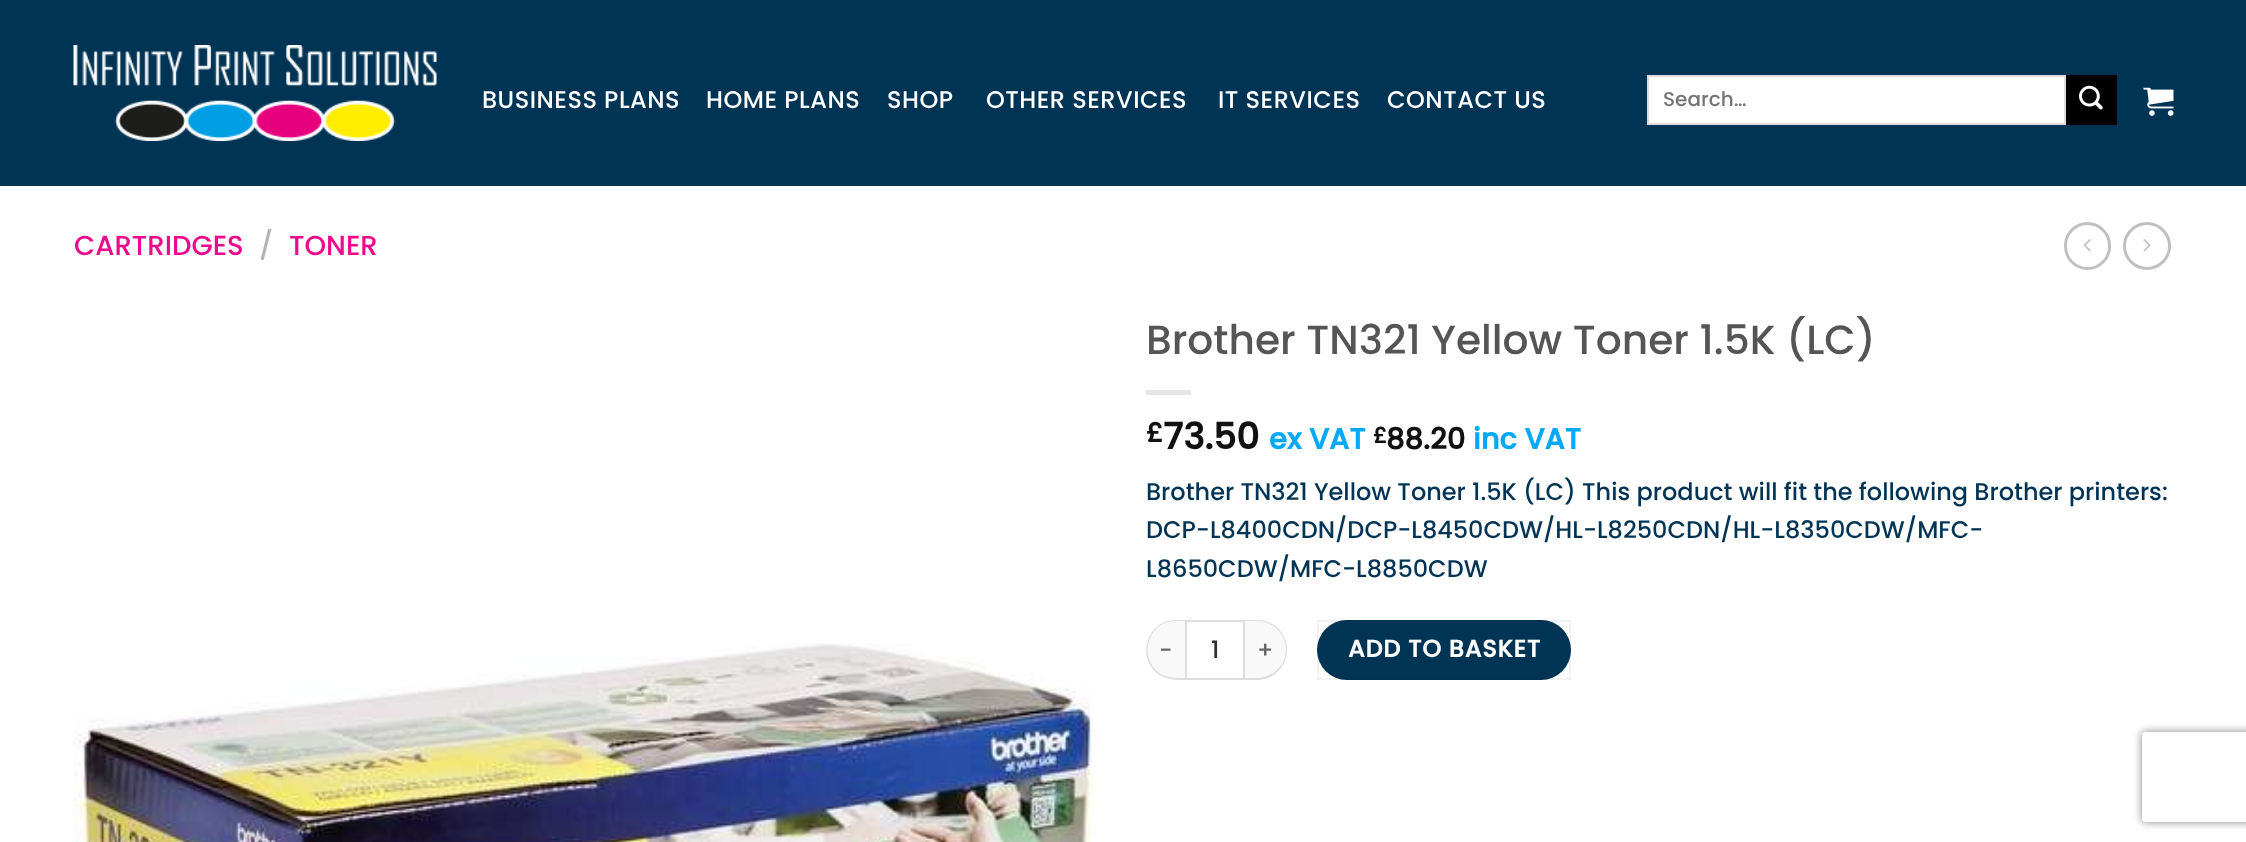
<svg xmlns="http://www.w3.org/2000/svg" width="2246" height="842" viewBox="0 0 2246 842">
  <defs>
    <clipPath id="clip1"><path d="M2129 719H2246V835H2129ZM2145 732H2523C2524.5 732 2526 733.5 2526 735V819C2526 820.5 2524.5 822 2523 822H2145C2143.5 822 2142 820.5 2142 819V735C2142 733.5 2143.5 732 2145 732Z" clip-rule="evenodd"/></clipPath>
    <filter id="blur1" x="-50%" y="-200%" width="200%" height="500%"><feGaussianBlur stdDeviation="4"/></filter>
  </defs>
  <rect width="100%" height="100%" fill="#ffffff"/>
  <rect x="0" y="0" width="2246" height="186" fill="#003455"/>
  <image x="73" y="45" width="364" height="96" href="img1.png"/>
  <text x="482" y="108" font-family="Poppins" font-size="24" font-weight="500" letter-spacing="0.5" fill="#ffffff">BUSINESS PLANS</text>
  <text x="706" y="108" font-family="Poppins" font-size="24" font-weight="500" letter-spacing="0.5" fill="#ffffff">HOME PLANS</text>
  <text x="887" y="108" font-family="Poppins" font-size="24" font-weight="500" letter-spacing="0.5" fill="#ffffff">SHOP</text>
  <text x="986" y="108" font-family="Poppins" font-size="24" font-weight="500" letter-spacing="0.5" fill="#ffffff">OTHER SERVICES</text>
  <text x="1218" y="108" font-family="Poppins" font-size="24" font-weight="500" letter-spacing="0.5" fill="#ffffff">IT SERVICES</text>
  <text x="1387" y="108" font-family="Poppins" font-size="24" font-weight="500" letter-spacing="0.5" fill="#ffffff">CONTACT US</text>
  <rect x="1648" y="76" width="417" height="48" fill="#ffffff" stroke="#dddddd" stroke-width="2"/>
  <text x="1663" y="106" font-family="Poppins" font-size="20" font-weight="500" fill="#757575">Search…</text>
  <rect x="2066" y="75" width="51" height="50" fill="#000000"/>
  <image x="2079" y="85" width="24" height="25" href="img2.png"/>
  <image x="2143" y="87" width="31" height="29" href="img3.png"/>
  <text x="74" y="255" font-family="Poppins" font-size="27.5" font-weight="500" fill="#ed088c">CARTRIDGES</text>
  <text x="259" y="255" font-family="Poppins" font-size="27.5" font-weight="500" fill="#b2b2b2">/</text>
  <text x="289" y="255" font-family="Poppins" font-size="27.5" font-weight="500" fill="#ed088c">TONER</text>
  <rect x="2065.5" y="223.5" width="44" height="45" rx="22" fill="none" stroke="#c0c0c0" stroke-width="3"/>
  <image x="2083" y="239" width="8" height="13" href="img4.png"/>
  <circle cx="2147" cy="246" r="22.5" fill="none" stroke="#c0c0c0" stroke-width="3"/>
  <image x="2143" y="239" width="8" height="13" href="img5.png"/>
  <text x="1146" y="354" font-family="Poppins" font-size="40.75" font-weight="500" fill="#555555">Brother TN321 Yellow Toner 1.5K (LC)</text>
  <rect x="1146" y="390" width="45" height="5" fill="#e6e6e6"/>
  <text x="1146" y="442" font-family="Poppins" font-size="27" font-weight="bold" fill="#111111">£</text>
  <text x="1163" y="449" font-family="Poppins" font-size="36" font-weight="bold" fill="#111111">73.50</text>
  <text x="1269" y="449" font-family="Poppins" font-size="29" font-weight="bold" fill="#03a9f4">ex VAT</text>
  <text x="1373" y="443" font-family="Poppins" font-size="22" font-weight="bold" fill="#111111">£</text>
  <text x="1386" y="449" font-family="Poppins" font-size="29" font-weight="bold" fill="#111111">88.20</text>
  <text x="1473" y="449" font-family="Poppins" font-size="29" font-weight="bold" fill="#03a9f4">inc VAT</text>
  <text x="1146" y="500" font-family="Poppins" font-size="24" font-weight="500" fill="#003455">Brother TN321 Yellow Toner 1.5K (LC) This product will fit the following Brother printers:</text>
  <text x="1146" y="538" font-family="Poppins" font-size="24" font-weight="500" fill="#003455">DCP-L8400CDN/DCP-L8450CDW/HL-L8250CDN/HL-L8350CDW/MFC-</text>
  <text x="1146" y="577" font-family="Poppins" font-size="24" font-weight="500" fill="#003455">L8650CDW/MFC-L8850CDW</text>
  <path d="M1176 620H1185V680H1176C1159.5 680 1146 666.5 1146 650C1146 633.5 1159.5 620 1176 620Z" fill="#f9f9f9"/>
  <path d="M1176 620H1185V680C1178 680 1171 680 1164 677C1135 665 1144 620 1176 620ZM1176 621H1185V678C1178 678 1171 678 1165 676C1137 664 1145 621 1176 621Z" fill="#dddddd" fill-rule="evenodd"/>
  <text x="1159" y="658" font-family="Poppins" font-size="23" font-weight="500" letter-spacing="1" fill="#666666">-</text>
  <rect x="1186" y="621" width="58" height="58" fill="none" stroke="#dddddd" stroke-width="2"/>
  <text x="1211" y="658" font-family="Poppins" font-size="24" font-weight="500" fill="#333333">1</text>
  <path d="M1245 620H1257C1273.5 620 1287 633.5 1287 650C1287 666.5 1273.5 680 1257 680H1245Z" fill="#f9f9f9"/>
  <path d="M1245 620H1257C1274 620 1287 633 1287 650C1287 666 1274 680 1257 680H1245ZM1245 621H1257C1273 621 1286 634 1286 650C1286 665 1273 678 1257 678H1245Z" fill="#dddddd" fill-rule="evenodd"/>
  <text x="1257" y="658" font-family="Poppins" font-size="23" font-weight="500" letter-spacing="1" fill="#666666">+</text>
  <rect x="1317" y="620" width="254" height="60" rx="30" fill="#003455"/>
  <rect x="1318" y="621" width="252" height="58" fill="none" stroke="#000000" stroke-opacity="0.05" stroke-width="2"/>
  <text x="1348" y="657" font-family="Poppins" font-size="24" font-weight="bold" letter-spacing="0.75" fill="#ffffff">ADD TO BASKET</text>
  <image x="73" y="643" width="1025" height="199" href="img6.png"/>
  <g clip-path="url(#clip1)">
    <rect x="2142" y="732" width="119" height="90" rx="3" fill="#808080" filter="url(#blur1)"/>
  </g>
</svg>
